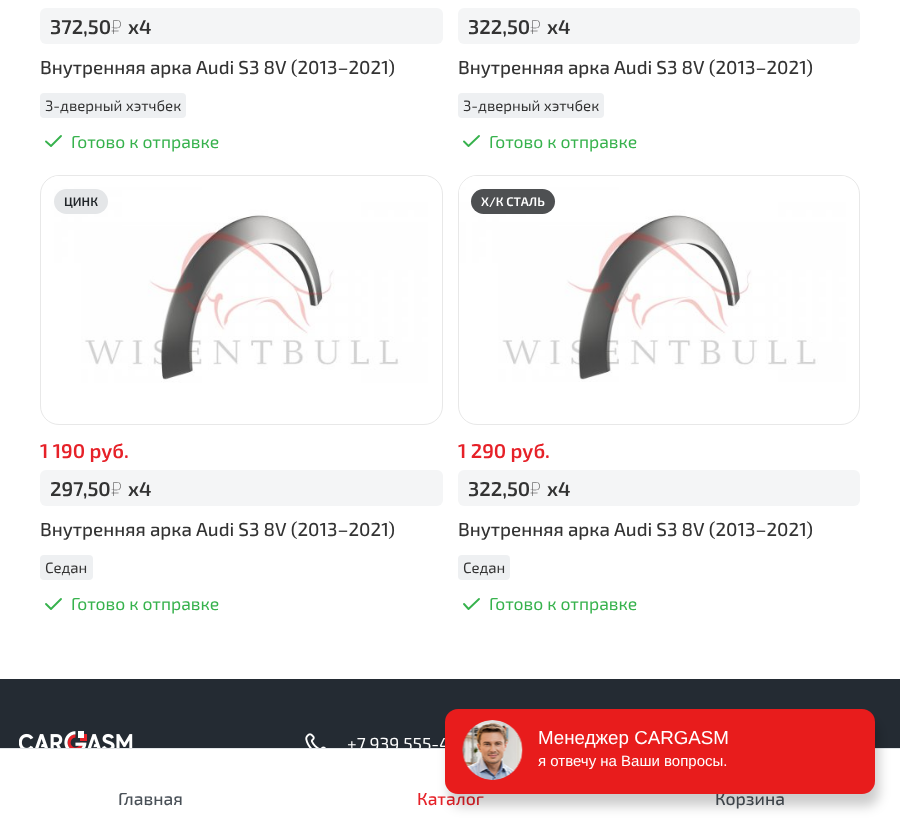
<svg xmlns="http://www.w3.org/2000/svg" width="900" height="818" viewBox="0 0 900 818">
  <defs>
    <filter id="blur1" x="-50%" y="-200%" width="200%" height="500%"><feGaussianBlur stdDeviation="6"/></filter>
  </defs>
  <rect width="100%" height="100%" fill="#ffffff"/>
  <rect x="40" y="8" width="403" height="36" rx="6" fill="#f4f5f6"/>
  <text x="50" y="34" font-family="'Exo 2'" font-size="20" font-weight="600" fill="#333333">372,50</text>
  <text x="111" y="34" font-family="'Exo 2'" font-size="20" font-weight="100" fill="#333333">₽</text>
  <text x="128" y="34" font-family="'Exo 2'" font-size="20" font-weight="600" fill="#333333">x4</text>
  <text x="40" y="74" font-family="'Exo 2'" font-size="18.75" font-weight="500" fill="#333333">Внутренняя арка Audi S3 8V (2013–2021)</text>
  <rect x="40" y="93" width="146" height="25" rx="4" fill="#eef0f2"/>
  <text x="45" y="111" font-family="'Exo 2'" font-size="15" fill="#333333">3-дверный хэтчбек</text>
  <path d="M61 136L51 146L46 141.5" fill="none" stroke="#37b24d" stroke-width="1.9" stroke-linecap="round" stroke-linejoin="round"/>
  <text x="71" y="148" font-family="'Exo 2'" font-size="17.5" fill="#37b24d">Готово к отправке</text>
  <rect x="458" y="8" width="402" height="36" rx="6" fill="#f4f5f6"/>
  <text x="468" y="34" font-family="'Exo 2'" font-size="20" font-weight="600" fill="#333333">322,50</text>
  <text x="530" y="34" font-family="'Exo 2'" font-size="20" font-weight="100" fill="#333333">₽</text>
  <text x="547" y="34" font-family="'Exo 2'" font-size="20" font-weight="600" fill="#333333">x4</text>
  <text x="458" y="74" font-family="'Exo 2'" font-size="18.75" font-weight="500" fill="#333333">Внутренняя арка Audi S3 8V (2013–2021)</text>
  <rect x="458" y="93" width="146" height="25" rx="4" fill="#eef0f2"/>
  <text x="463" y="111" font-family="'Exo 2'" font-size="15" fill="#333333">3-дверный хэтчбек</text>
  <path d="M479 136L468.5 146L464 141.5" fill="none" stroke="#37b24d" stroke-width="1.9" stroke-linecap="round" stroke-linejoin="round"/>
  <text x="489" y="148" font-family="'Exo 2'" font-size="17.5" fill="#37b24d">Готово к отправке</text>
  <rect x="40.5" y="175.5" width="402" height="249" rx="18.5" fill="none" stroke="#e8e8e8"/>
  <image x="51" y="176" width="377" height="207" href="img1.png"/>
  <rect x="54" y="189" width="54" height="25" rx="12.5" fill="#e4e6e8"/>
  <text x="64" y="206" font-family="'Exo 2'" font-size="12.5" font-weight="600" fill="#212529">ЦИНК</text>
  <text x="40" y="458" font-family="'Exo 2'" font-size="20" font-weight="600" fill="#e62128">1 190 руб.</text>
  <rect x="40" y="470" width="403" height="36" rx="6" fill="#f4f5f6"/>
  <text x="50" y="496" font-family="'Exo 2'" font-size="20" font-weight="600" fill="#333333">297,50</text>
  <text x="111" y="496" font-family="'Exo 2'" font-size="20" font-weight="100" fill="#333333">₽</text>
  <text x="128" y="496" font-family="'Exo 2'" font-size="20" font-weight="600" fill="#333333">x4</text>
  <text x="40" y="536" font-family="'Exo 2'" font-size="18.75" font-weight="500" fill="#333333">Внутренняя арка Audi S3 8V (2013–2021)</text>
  <rect x="40" y="555" width="53" height="25" rx="4" fill="#eef0f2"/>
  <text x="45" y="573" font-family="'Exo 2'" font-size="15" fill="#333333">Седан</text>
  <path d="M61 599L51 609L46 604" fill="none" stroke="#37b24d" stroke-width="1.9" stroke-linecap="round" stroke-linejoin="round"/>
  <text x="71" y="610" font-family="'Exo 2'" font-size="17.5" fill="#37b24d">Готово к отправке</text>
  <rect x="458.5" y="175.5" width="401" height="249" rx="18.5" fill="none" stroke="#e8e8e8"/>
  <image x="459" y="176" width="387" height="206" href="img2.png"/>
  <rect x="471" y="189" width="84" height="25" rx="12.5" fill="#4e5052"/>
  <text x="481" y="206" font-family="'Exo 2'" font-size="12.5" font-weight="600" fill="#ffffff">Х/К СТАЛЬ</text>
  <text x="458" y="458" font-family="'Exo 2'" font-size="20" font-weight="600" fill="#e62128">1 290 руб.</text>
  <rect x="458" y="470" width="402" height="36" rx="6" fill="#f4f5f6"/>
  <text x="468" y="496" font-family="'Exo 2'" font-size="20" font-weight="600" fill="#333333">322,50</text>
  <text x="530" y="496" font-family="'Exo 2'" font-size="20" font-weight="100" fill="#333333">₽</text>
  <text x="547" y="496" font-family="'Exo 2'" font-size="20" font-weight="600" fill="#333333">x4</text>
  <text x="458" y="536" font-family="'Exo 2'" font-size="18.75" font-weight="500" fill="#333333">Внутренняя арка Audi S3 8V (2013–2021)</text>
  <rect x="458" y="555" width="52" height="25" rx="4" fill="#eef0f2"/>
  <text x="463" y="573" font-family="'Exo 2'" font-size="15" fill="#333333">Седан</text>
  <path d="M479 599L468.5 609L464 604" fill="none" stroke="#37b24d" stroke-width="1.9" stroke-linecap="round" stroke-linejoin="round"/>
  <text x="489" y="610" font-family="'Exo 2'" font-size="17.5" fill="#37b24d">Готово к отправке</text>
  <rect x="0" y="679" width="900" height="69" fill="#242b33"/>
  <image x="19" y="731" width="114" height="17" href="img3.png"/>
  <image x="305" y="733" width="21" height="15" href="img4.png"/>
  <text x="347" y="750" font-family="'Exo 2'" font-size="17.5" fill="#ffffff">+7 939 555-4</text>
  <rect x="0" y="748" width="900" height="1" fill="#e2e5e9"/>
  <text x="118" y="805" font-family="'Exo 2'" font-size="17.5" font-weight="500" fill="#495057">Главная</text>
  <text x="417" y="805" font-family="'Exo 2'" font-size="17.5" font-weight="500" fill="#e62128">Каталог</text>
  <text x="715" y="805" font-family="'Exo 2'" font-size="17.5" font-weight="500" fill="#495057">Корзина</text>
  <rect x="449" y="721" width="430" height="85" rx="13" fill="#000000" fill-opacity="0.2" filter="url(#blur1)"/>
  <rect x="445" y="709" width="430" height="85" rx="13" fill="#e81c1c"/>
  <image x="462" y="720" width="61" height="60" href="img5.png"/>
  <text x="538" y="744" font-family="Liberation Sans" font-size="18.75" fill="#ffffff">Менеджер CARGASM</text>
  <text x="538" y="766" font-family="Liberation Sans" font-size="15" fill="#ffffff">я отвечу на Ваши вопросы.</text>
</svg>
